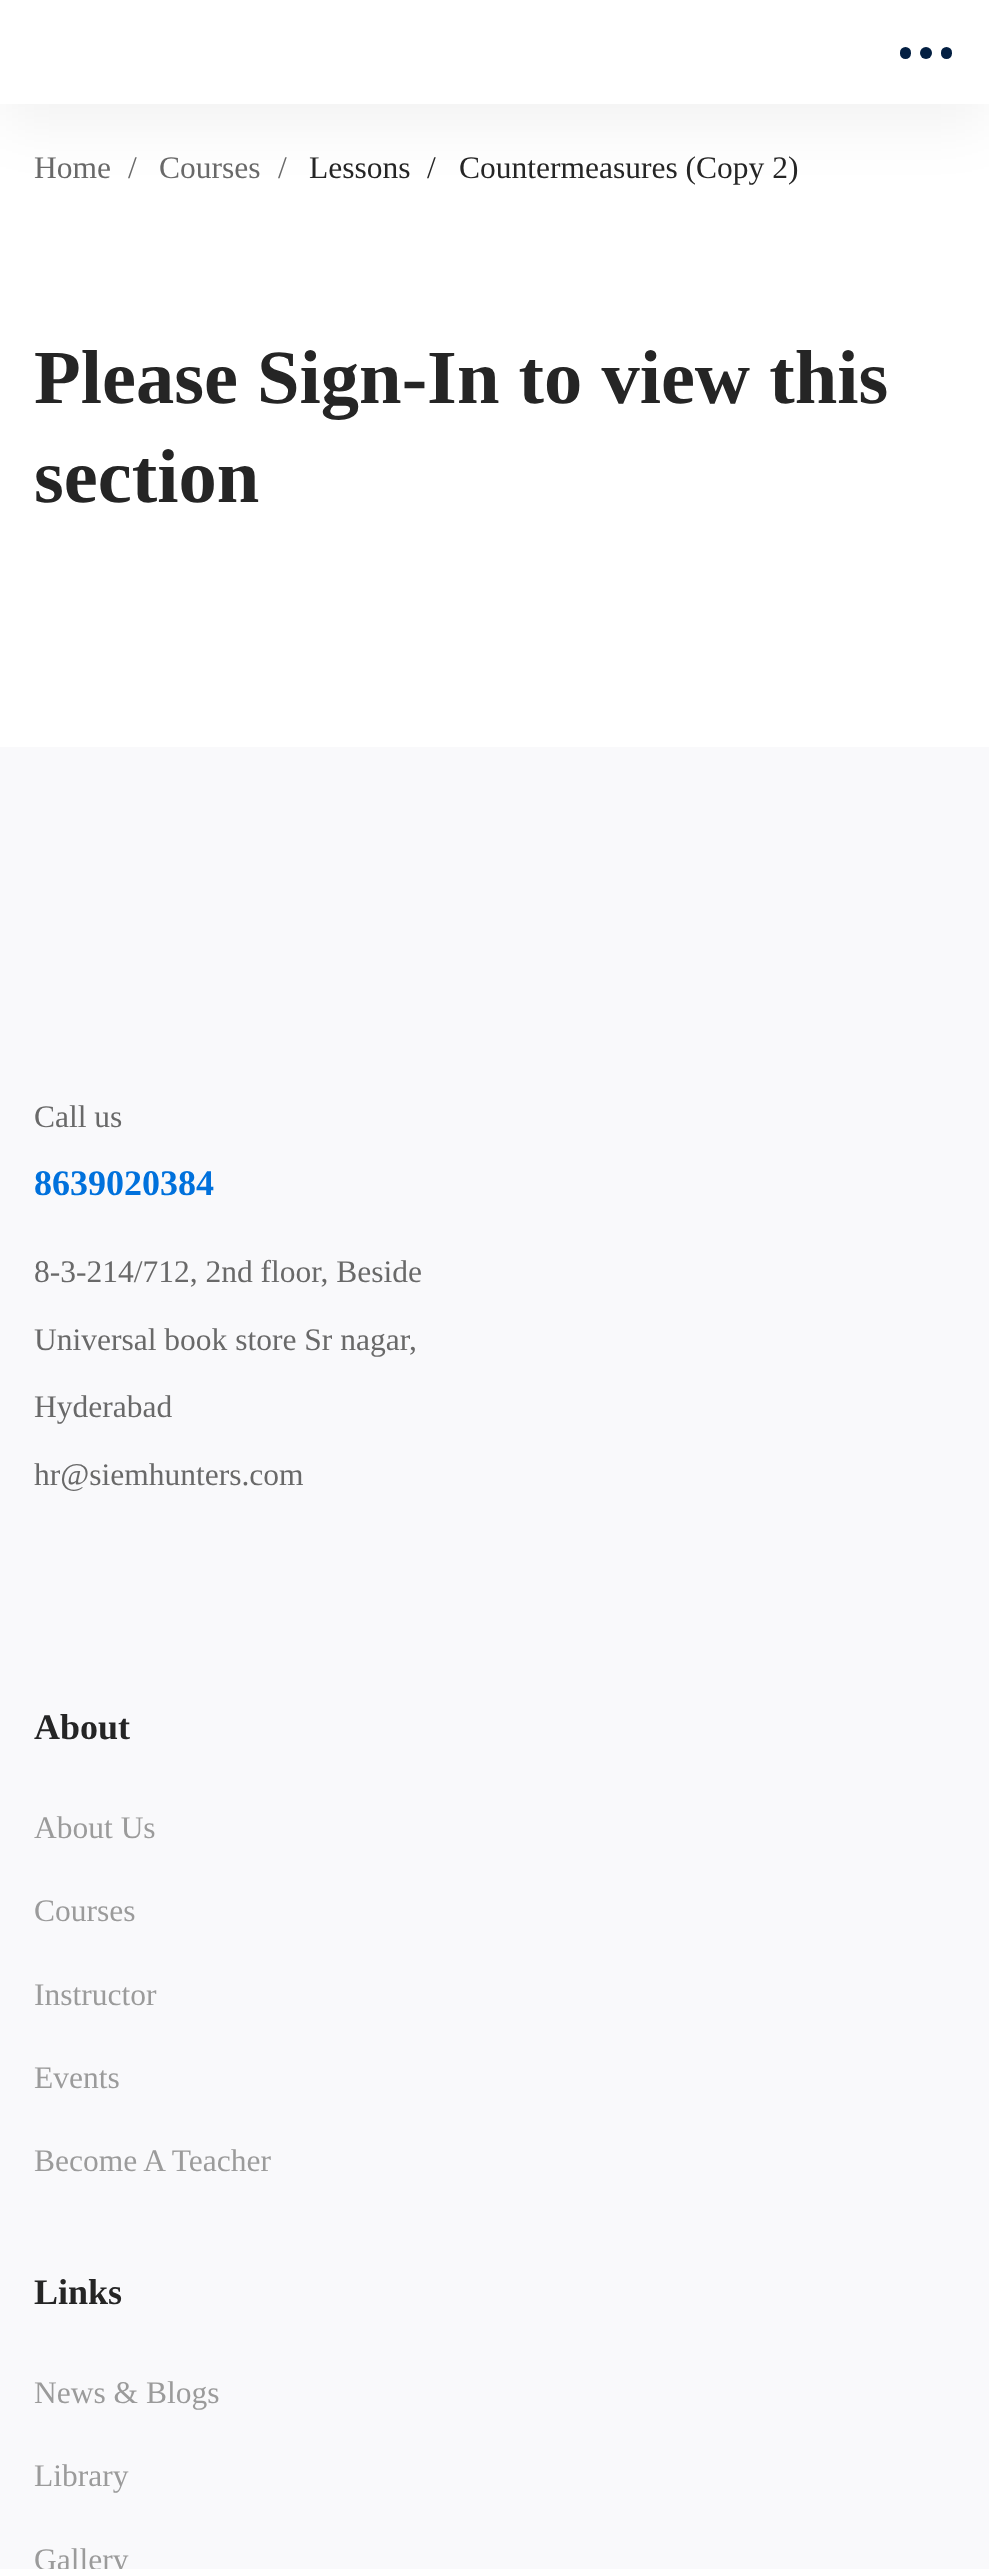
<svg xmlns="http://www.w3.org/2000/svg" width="989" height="2569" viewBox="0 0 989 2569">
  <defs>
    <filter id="blur1" x="-50%" y="-200%" width="200%" height="500%"><feGaussianBlur stdDeviation="29"/></filter>
  </defs>
  <rect width="100%" height="100%" fill="#ffffff"/>
  <rect x="0" y="23" width="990" height="103" fill="#000000" fill-opacity="0.05" filter="url(#blur1)"/>
  <rect x="0" y="0" width="989" height="104" fill="#ffffff"/>
  <rect x="900" y="47" width="11" height="12" rx="5.5" fill="#031f42"/>
  <circle cx="926" cy="53" r="6" fill="#031f42"/>
  <rect x="941" y="47" width="11" height="12" rx="5.5" fill="#031f42"/>
  <text x="34" y="178" font-family="Liberation Serif" font-size="31.5" fill="#696969">Home</text>
  <text x="128" y="178" font-family="Liberation Serif" font-size="31.5" fill="#696969">/</text>
  <text x="159" y="178" font-family="Liberation Serif" font-size="31.5" fill="#696969">Courses</text>
  <text x="278" y="178" font-family="Liberation Serif" font-size="31.5" fill="#696969">/</text>
  <text x="309" y="178" font-family="Liberation Serif" font-size="31.5" fill="#252525">Lessons</text>
  <text x="427" y="178" font-family="Liberation Serif" font-size="31.5" fill="#252525">/</text>
  <text x="459" y="178" font-family="Liberation Serif" font-size="31.5" fill="#252525">Countermeasures (Copy 2)</text>
  <text x="34" y="403" font-family="Liberation Serif" font-size="76.5" font-weight="bold" fill="#252525">Please Sign-In to view this</text>
  <text x="34" y="502" font-family="Liberation Serif" font-size="76.5" font-weight="bold" fill="#252525">section</text>
  <rect x="0" y="747" width="989" height="1822" fill="#f9f9fb"/>
  <text x="34" y="1127" font-family="Liberation Serif" font-size="31.5" fill="#696969">Call us</text>
  <text x="34" y="1195" font-family="Liberation Serif" font-size="36" font-weight="bold" fill="#0071dc">8639020384</text>
  <text x="34" y="1282" font-family="Liberation Serif" font-size="31.5" fill="#696969">8-3-214/712, 2nd floor, Beside</text>
  <text x="34" y="1350" font-family="Liberation Serif" font-size="31.5" fill="#696969">Universal book store Sr nagar,</text>
  <text x="34" y="1417" font-family="Liberation Serif" font-size="31.5" fill="#696969">Hyderabad</text>
  <text x="34" y="1485" font-family="Liberation Serif" font-size="31.5" fill="#696969">hr@siemhunters.com</text>
  <text x="34" y="1739" font-family="Liberation Serif" font-size="36" font-weight="bold" fill="#252525">About</text>
  <text x="34" y="1838" font-family="Liberation Serif" font-size="31.5" fill="#9b9b9b">About Us</text>
  <text x="34" y="1921" font-family="Liberation Serif" font-size="31.5" fill="#9b9b9b">Courses</text>
  <text x="34" y="2005" font-family="Liberation Serif" font-size="31.5" fill="#9b9b9b">Instructor</text>
  <text x="34" y="2088" font-family="Liberation Serif" font-size="31.5" fill="#9b9b9b">Events</text>
  <text x="34" y="2171" font-family="Liberation Serif" font-size="31.5" fill="#9b9b9b">Become A Teacher</text>
  <text x="34" y="2304" font-family="Liberation Serif" font-size="36" font-weight="bold" fill="#252525">Links</text>
  <text x="34" y="2403" font-family="Liberation Serif" font-size="31.5" fill="#9b9b9b">News &amp; Blogs</text>
  <text x="34" y="2486" font-family="Liberation Serif" font-size="31.5" fill="#9b9b9b">Library</text>
  <text x="34" y="2570" font-family="Liberation Serif" font-size="31.5" fill="#9b9b9b">Gallery</text>
</svg>
